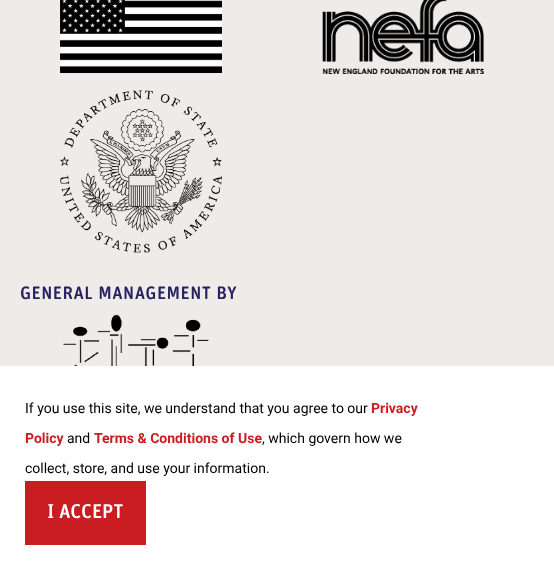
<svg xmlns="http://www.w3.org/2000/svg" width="554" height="570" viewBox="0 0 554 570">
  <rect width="100%" height="100%" fill="#eeebe8"/>
  <image x="60" y="0" width="162" height="253" href="img1.png"/>
  <image x="322" y="0" width="162" height="74" href="img2.png"/>
  <text x="20" y="299" font-family="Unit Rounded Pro" font-size="18" font-weight="500" letter-spacing="0.5" fill="#262262">GENERAL MANAGEMENT BY</text>
  <image x="63" y="314" width="146" height="52" href="img3.png"/>
  <rect x="0" y="366" width="554" height="204" fill="#ffffff"/>
  <text x="25" y="413" font-family="Roboto" font-size="14" fill="#000000">If you use this site, we understand that you agree to our</text>
  <text x="371" y="413" font-family="Roboto" font-size="14" font-weight="bold" fill="#c91d22">Privacy</text>
  <text x="25" y="443" font-family="Roboto" font-size="14" font-weight="bold" fill="#c91d22">Policy</text>
  <text x="67" y="443" font-family="Roboto" font-size="14" fill="#000000">and</text>
  <text x="94" y="443" font-family="Roboto" font-size="14" font-weight="bold" fill="#c91d22">Terms &amp; Conditions of Use</text>
  <text x="262" y="443" font-family="Roboto" font-size="14" fill="#000000">, which govern how we</text>
  <text x="25" y="473" font-family="Roboto" font-size="14" fill="#000000">collect, store, and use your information.</text>
  <rect x="25" y="481" width="121" height="64" fill="#c91d22"/>
  <image x="48" y="504" width="6" height="14" href="img4.png"/>
  <text x="59" y="518" font-family="Unit Rounded Pro" font-size="20" font-weight="500" fill="#ffffff">ACCEPT</text>
</svg>
